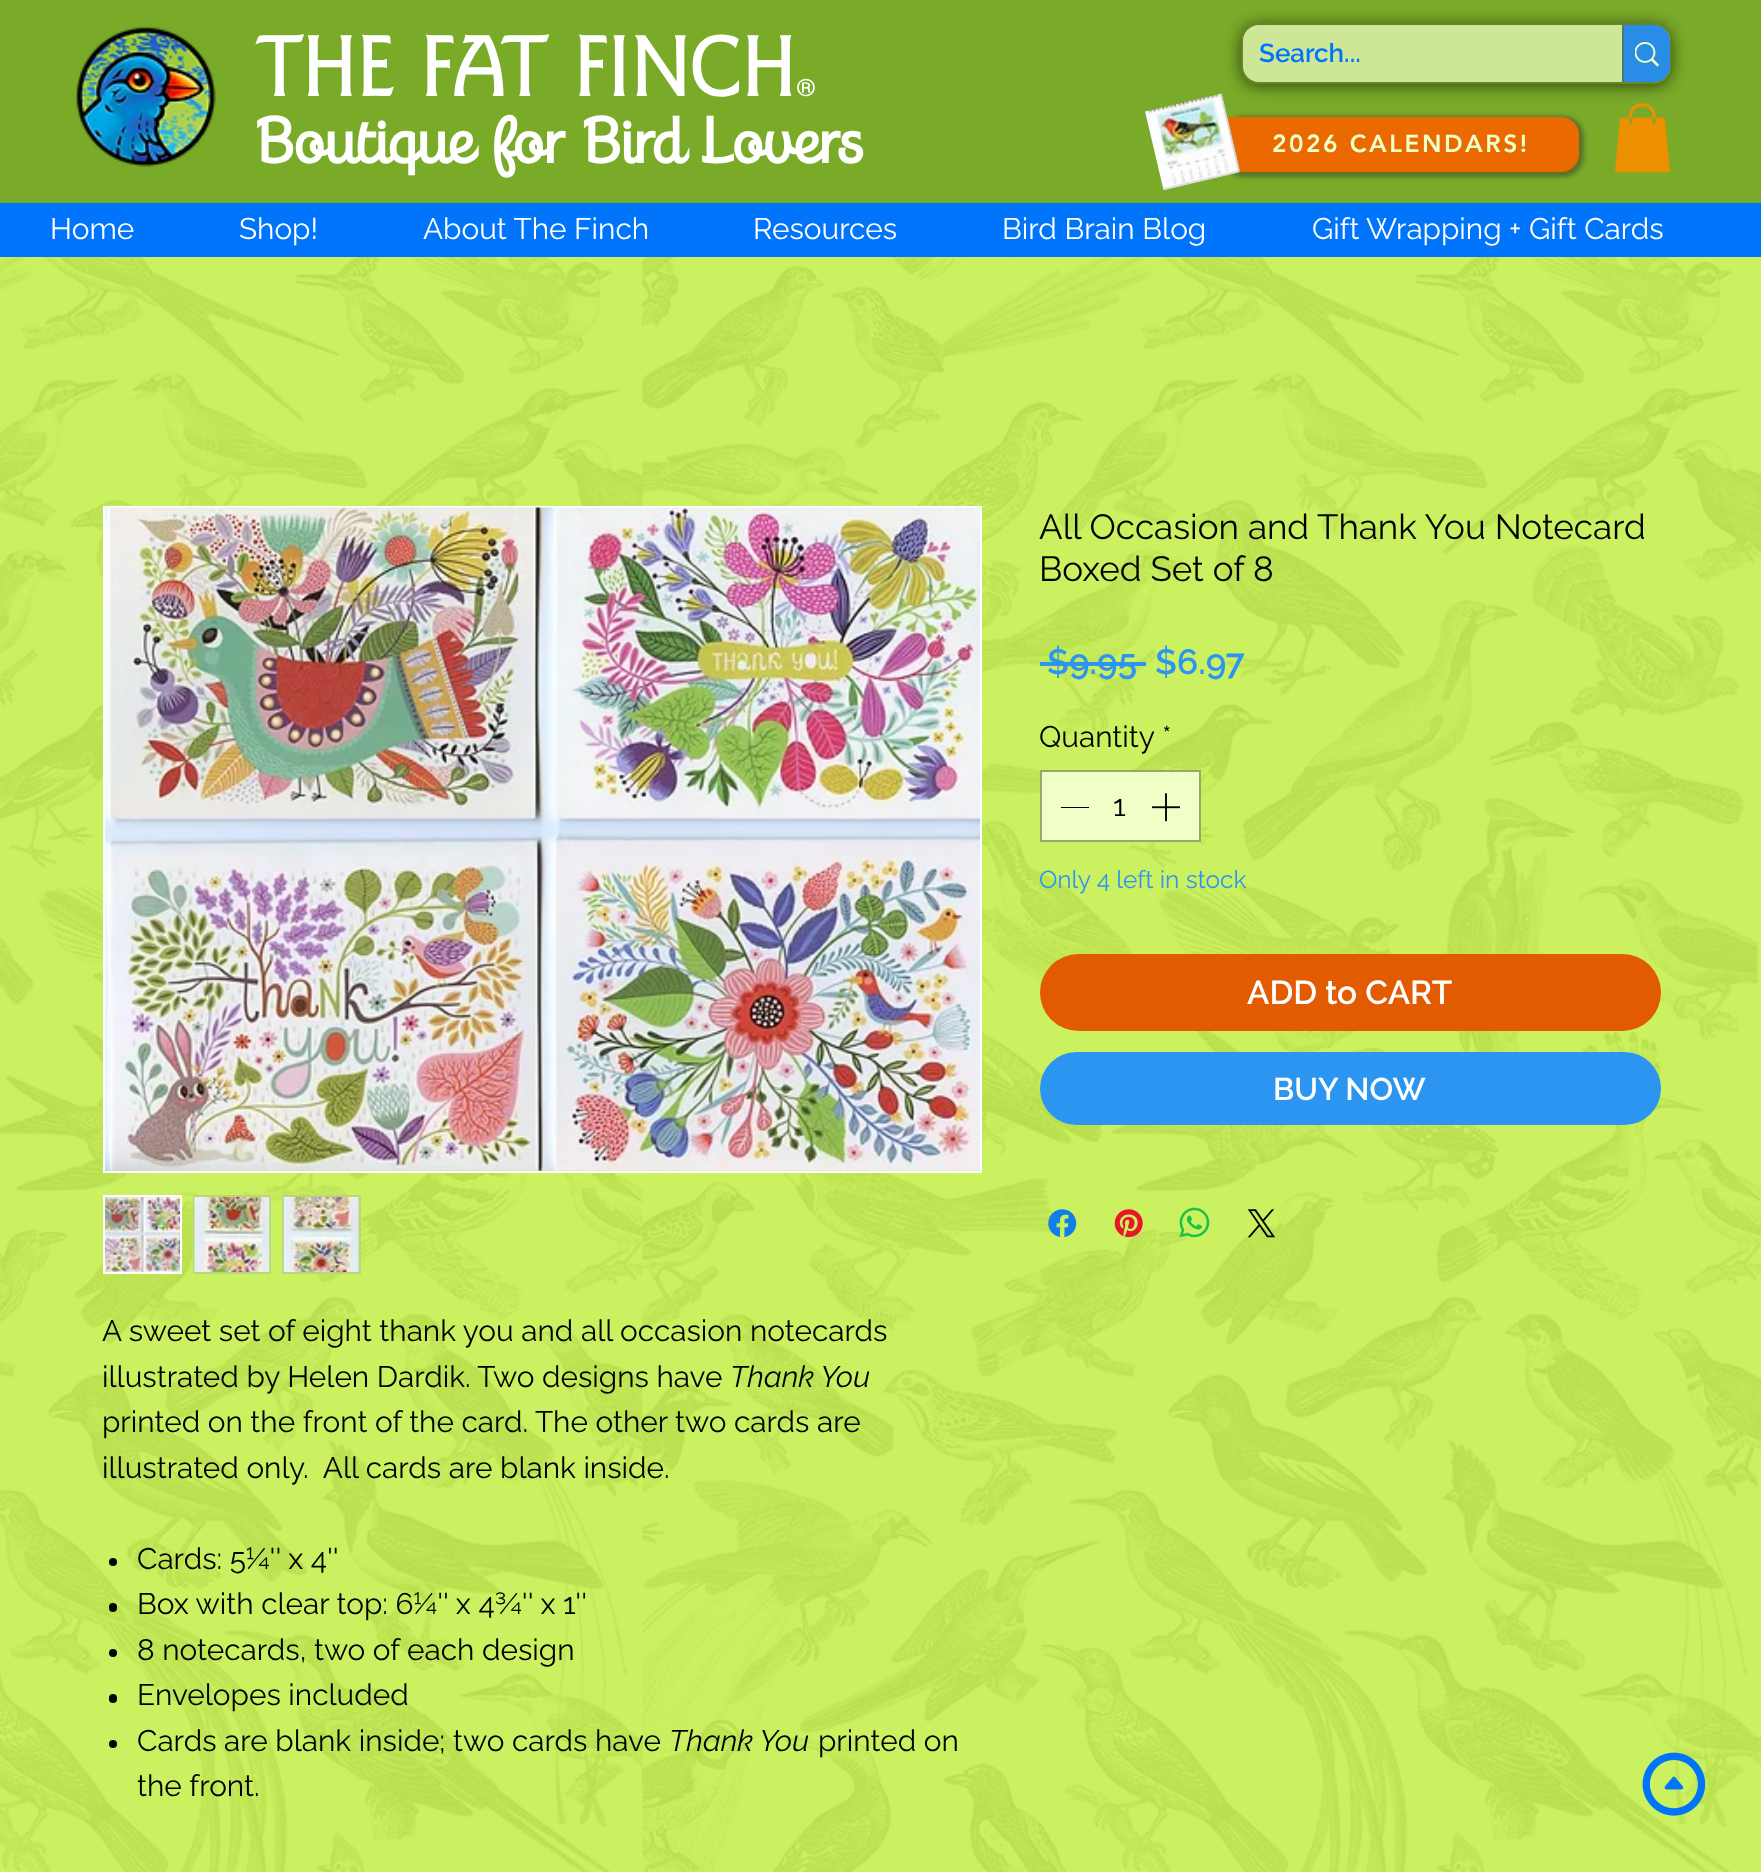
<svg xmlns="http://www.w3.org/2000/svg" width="1761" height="1872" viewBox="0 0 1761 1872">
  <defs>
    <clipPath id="clip1"><path d="M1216 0H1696V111H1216ZM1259 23H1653C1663 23 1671 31 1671 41V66C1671 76 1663 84 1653 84H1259C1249 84 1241 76 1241 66V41C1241 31 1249 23 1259 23Z" clip-rule="evenodd"/></clipPath>
    <filter id="blur1" x="-50%" y="-200%" width="200%" height="500%"><feGaussianBlur stdDeviation="8"/></filter>
    <filter id="blur2" x="-50%" y="-200%" width="200%" height="500%"><feGaussianBlur stdDeviation="2"/></filter>
  </defs>
  <rect width="100%" height="100%" fill="#c7f054"/>
  <rect x="0" y="0" width="1761" height="203" fill="#79aa28"/>
  <image x="75" y="26" width="141" height="141" href="img1.png"/>
  <text x="256" y="96" font-family="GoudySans" font-size="87.5" font-weight="bold" fill="#ffffff">THE FAT FINCH</text>
  <text x="796" y="96" font-family="GoudySans" font-size="24.5" font-weight="bold" fill="#ffffff">®</text>
  <text x="256" y="163" font-family="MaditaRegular" font-size="63" font-weight="bold" fill="#ffffff">Boutique for Bird Lovers</text>
  <g clip-path="url(#clip1)">
    <rect x="1241" y="25" width="430" height="61" rx="18" fill="#000000" fill-opacity="0.6" filter="url(#blur1)"/>
  </g>
  <rect x="1242" y="24" width="428" height="59" rx="17" fill="none" stroke="#597227" stroke-opacity="0.6" stroke-width="2"/>
  <rect x="1243" y="25" width="427" height="57" rx="16" fill="#f0ffc7" fill-opacity="0.71"/>
  <text x="1259" y="62" font-family="Raleway" font-size="26" font-weight="600" fill="#0075fb">Search...</text>
  <path d="M1622 25H1654C1663 25 1670 32 1670 41V66C1670 75 1663 82 1654 82H1622Z" fill="#0075fb" fill-opacity="0.8"/>
  <rect x="1622" y="25" width="2" height="57" fill="#467c74"/>
  <image x="1635" y="42" width="24" height="25" href="img2.png"/>
  <rect x="1223" y="116" width="361" height="61" rx="21" fill="#597227" filter="url(#blur2)"/>
  <path d="M1225 117H1561C1571 117 1579 125 1579 135V154C1579 164 1571 172 1561 172H1225Z" fill="#ea6900"/>
  <image x="1145" y="93" width="96" height="98" href="img3.png"/>
  <text x="1272" y="152" font-family="'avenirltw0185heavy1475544'" font-size="24.5" font-weight="900" letter-spacing="2.5" fill="#f0ffc7">2026 CALENDARS!</text>
  <image x="1615" y="103" width="55" height="70" href="img4.png"/>
  <rect x="0" y="203" width="1761" height="54" fill="#0075fb"/>
  <text x="50" y="239" font-family="Raleway" font-size="29.75" fill="#ffffff">Home</text>
  <text x="239" y="239" font-family="Raleway" font-size="29.75" fill="#ffffff">Shop!</text>
  <text x="423" y="239" font-family="Raleway" font-size="29.75" fill="#ffffff">About The Finch</text>
  <text x="753" y="239" font-family="Raleway" font-size="29.75" fill="#ffffff">Resources</text>
  <text x="1002" y="239" font-family="Raleway" font-size="29.75" fill="#ffffff">Bird Brain Blog</text>
  <text x="1312" y="239" font-family="Raleway" font-size="29.75" fill="#ffffff">Gift Wrapping + Gift Cards</text>
  <image x="0" y="257" width="1761" height="1615" href="img15.png"/>
  <text x="1039" y="539" font-family="Raleway" font-size="35" fill="#000000">All Occasion and Thank You Notecard</text>
  <text x="1039" y="581" font-family="Raleway" font-size="35" fill="#000000">Boxed Set of 8</text>
  <text x="1047" y="674" font-family="Raleway" font-size="35" font-weight="600" fill="#2c95f2">$9.95</text>
  <rect x="1040" y="662" width="106" height="4" fill="#2c95f2"/>
  <text x="1155" y="674" font-family="Raleway" font-size="35" font-weight="600" fill="#2c95f2">$6.97</text>
  <text x="1039" y="747" font-family="Raleway" font-size="29.75" fill="#000000">Quantity</text>
  <text x="1162" y="747" font-family="Raleway" font-size="29.75" fill="#000000">*</text>
  <rect x="1041" y="771" width="159" height="70" fill="#f0ffc7" stroke="#95aa67" stroke-width="2"/>
  <rect x="1061" y="807" width="28" height="1" fill="#000000"/>
  <text x="1113" y="816" font-family="Raleway" font-size="29.75" fill="#000000">1</text>
  <image x="1152" y="793" width="28" height="29" href="img5.png"/>
  <text x="1039" y="888" font-family="Raleway" font-size="24.5" fill="#2c95f2">Only 4 left in stock</text>
  <rect x="1040" y="954" width="621" height="77" rx="38.5" fill="#e35b00"/>
  <text x="1247" y="1004" font-family="Raleway" font-size="33.25" font-weight="600" fill="#ffffff">ADD to CART</text>
  <rect x="1040" y="1052" width="621" height="73" rx="36.5" fill="#2c95f2"/>
  <text x="1273" y="1100" font-family="Raleway" font-size="31.5" font-weight="600" fill="#ffffff">BUY NOW</text>
  <image x="1048" y="1209" width="29" height="28" href="img6.png"/>
  <image x="1114" y="1209" width="29" height="29" href="img7.png"/>
  <image x="1179" y="1207" width="31" height="31" href="img8.png"/>
  <image x="1247" y="1209" width="28" height="29" href="img9.png"/>
  <rect x="104" y="507" width="877" height="665" fill="none" stroke="#ffffff" stroke-width="2"/>
  <image x="105" y="507" width="875" height="664" href="img10.png"/>
  <rect x="104" y="1196" width="77" height="77" fill="none" stroke="#ffffff" stroke-width="2"/>
  <image x="105" y="1197" width="76" height="76" href="img11.png"/>
  <rect x="193" y="1195" width="78" height="79" fill="#bcd47b"/>
  <image x="194" y="1197" width="76" height="76" href="img12.png"/>
  <rect x="282" y="1195" width="79" height="79" fill="#bcd47b"/>
  <image x="283" y="1197" width="76" height="76" href="img13.png"/>
  <text x="102" y="1341" font-family="Raleway" font-size="29.75" fill="#000000">A sweet set of eight thank you and all occasion notecards</text>
  <text x="102" y="1387" font-family="Raleway" font-size="29.75" fill="#000000">illustrated by Helen Dardik. Two designs have</text>
  <text x="730" y="1387" font-family="Raleway" font-size="29.75" font-style="italic" fill="#000000">Thank You</text>
  <text x="102" y="1432" font-family="Raleway" font-size="29.75" fill="#000000">printed on the front of the card. The other two cards are</text>
  <text x="102" y="1478" font-family="Raleway" font-size="29.75" fill="#000000" xml:space="preserve">illustrated only.  All cards are blank inside.</text>
  <circle cx="113" cy="1562" r="4" fill="#000000"/>
  <text x="137" y="1569" font-family="Raleway" font-size="29.75" fill="#000000">Cards: 5¼'' x 4''</text>
  <rect x="109" y="1603" width="8" height="9" rx="4" fill="#000000"/>
  <text x="137" y="1614" font-family="Raleway" font-size="29.75" fill="#000000">Box with clear top: 6¼'' x 4¾'' x 1''</text>
  <circle cx="113" cy="1653" r="4" fill="#000000"/>
  <text x="137" y="1660" font-family="Raleway" font-size="29.75" fill="#000000">8 notecards, two of each design</text>
  <rect x="109" y="1694" width="8" height="9" rx="4" fill="#000000"/>
  <text x="137" y="1705" font-family="Raleway" font-size="29.75" fill="#000000">Envelopes included</text>
  <circle cx="113" cy="1744" r="4" fill="#000000"/>
  <text x="137" y="1751" font-family="Raleway" font-size="29.75" fill="#000000">Cards are blank inside; two cards have</text>
  <text x="669" y="1751" font-family="Raleway" font-size="29.75" font-style="italic" fill="#000000">Thank You</text>
  <text x="818" y="1751" font-family="Raleway" font-size="29.75" fill="#000000">printed on</text>
  <text x="137" y="1796" font-family="Raleway" font-size="29.75" fill="#000000">the front.</text>
  <image x="1642" y="1752" width="64" height="64" href="img14.png"/>
</svg>
